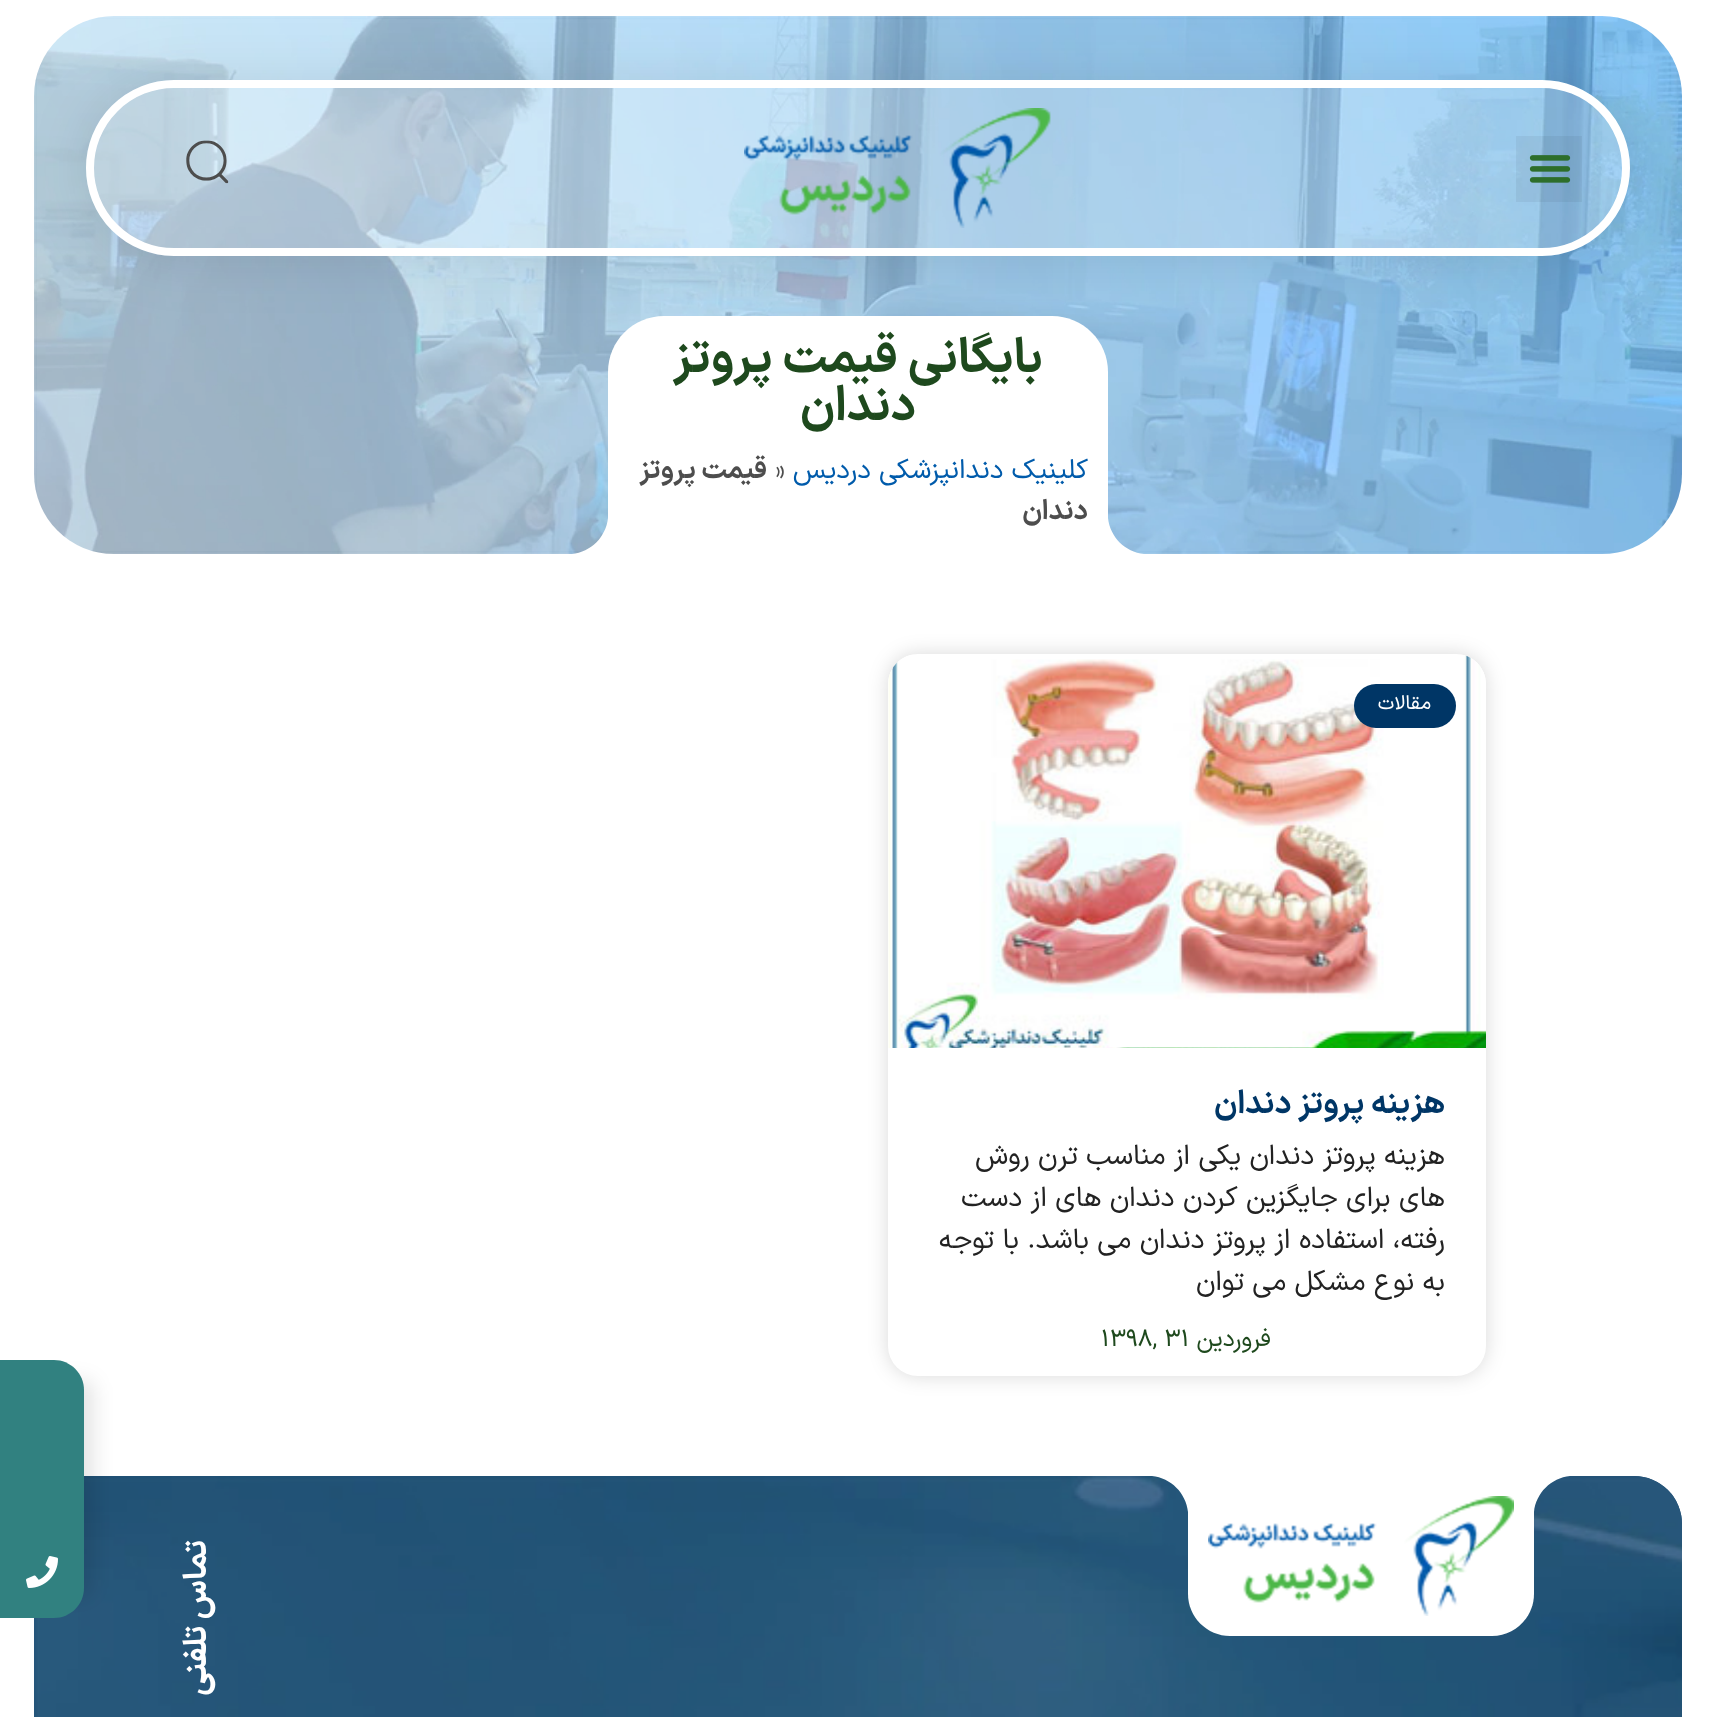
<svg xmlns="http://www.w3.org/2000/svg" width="1715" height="1717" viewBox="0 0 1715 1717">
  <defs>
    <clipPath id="clip1"><path d="M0 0H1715V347H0ZM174 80H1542C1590.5 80 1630 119.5 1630 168C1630 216.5 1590.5 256 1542 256H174C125.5 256 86 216.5 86 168C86 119.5 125.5 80 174 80Z" clip-rule="evenodd"/></clipPath>
    <filter id="blur1" x="-50%" y="-200%" width="200%" height="500%"><feGaussianBlur stdDeviation="30"/></filter>
    <filter id="blur2" x="-50%" y="-200%" width="200%" height="500%"><feGaussianBlur stdDeviation="10"/></filter>
  </defs>
  <rect width="100%" height="100%" fill="#ffffff"/>
  <image x="34" y="16" width="1648" height="538" href="img4.png"/>
  <path d="M664 316H1052C1083 316 1108 341 1108 372V554H608V372C608 341 633 316 664 316Z" fill="#ffffff"/>
  <g clip-path="url(#clip1)">
    <rect x="86" y="80" width="1544" height="176" rx="88" fill="#000000" fill-opacity="0.1" filter="url(#blur1)"/>
  </g>
  <rect x="90" y="84" width="1536" height="168" rx="84" fill="#ffffff" fill-opacity="0.2" stroke="#ffffff" stroke-width="8"/>
  <rect x="1516" y="136" width="66" height="66" fill="#000000" fill-opacity="0.05"/>
  <image x="1529" y="155" width="42" height="28" href="img1.png"/>
  <image x="744" y="108" width="307" height="120" href="img2.png"/>
  <image x="186" y="140" width="43" height="44" href="img3.png"/>
  <text x="1043" y="372" font-family="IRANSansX" font-size="48" font-weight="bold" direction="rtl" fill="#1e491d">بایگانی قیمت پروتز</text>
  <text x="916" y="420" font-family="IRANSansX" font-size="48" font-weight="bold" direction="rtl" fill="#1e491d">دندان</text>
  <text x="1088" y="478" font-family="IRANSansX" font-size="27.25" direction="rtl" fill="#005bab">کلینیک دندانپزشکی دردیس</text>
  <text x="775" y="478" font-family="IRANSansX" font-size="27.25" fill="#4d4d4d">»</text>
  <text x="767" y="478" font-family="IRANSansX" font-size="27.25" font-weight="bold" direction="rtl" fill="#4d4d4d">قیمت پروتز</text>
  <text x="1088" y="519" font-family="IRANSansX" font-size="27.25" font-weight="bold" direction="rtl" fill="#4d4d4d">دندان</text>
  <path d="M1096 518V526C1096 548 1114 566 1136 566H1144V554C1125 552 1110 537 1108 518Z" fill="#ffffff"/>
  <path d="M572 554V566H580C602 566 620 548 620 526V518H608C606 537 591 552 572 554Z" fill="#ffffff"/>
  <rect x="888" y="654" width="598" height="722" rx="30" fill="#000000" fill-opacity="0.15" filter="url(#blur2)"/>
  <rect x="888" y="654" width="598" height="722" rx="30" fill="#ffffff"/>
  <image x="888" y="655" width="598" height="393" href="img5.png"/>
  <rect x="1354" y="684" width="102" height="44" rx="22" fill="#003666"/>
  <text x="1431" y="709" font-family="IRANSansX" font-size="20" direction="rtl" fill="#ffffff">مقالات</text>
  <text x="1445" y="1113" font-family="IRANSansX" font-size="32" font-weight="bold" direction="rtl" fill="#003666">هزینه پروتز دندان</text>
  <text x="1445" y="1164" font-family="IRANSansX" font-size="28" direction="rtl" fill="#222222">هزینه پروتز دندان یکی از مناسب ترن روش</text>
  <text x="1445" y="1206" font-family="IRANSansX" font-size="28" direction="rtl" fill="#222222">های برای جایگزین کردن دندان های از دست</text>
  <text x="1445" y="1248" font-family="IRANSansX" font-size="28" direction="rtl" fill="#222222">رفته، استفاده از پروتز دندان می باشد. با توجه</text>
  <text x="1445" y="1290" font-family="IRANSansX" font-size="28" direction="rtl" fill="#222222">به نوع مشکل می توان</text>
  <text x="1271" y="1346" font-family="IRANSansX" font-size="24" direction="rtl" fill="#1e491d">فروردین</text>
  <text x="1101" y="1346" font-family="IRANSansX" font-size="24" fill="#1e491d">۱۳۹۸, ۳۱</text>
  <rect x="34" y="1476" width="1648" height="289" rx="48" fill="#003666"/>
  <image x="34" y="1476" width="1648" height="241" href="img7.png"/>
  <rect x="50" y="1380" width="44" height="218" rx="10" fill="#000000" fill-opacity="0.1" filter="url(#blur2)"/>
  <path d="M0 1360H54C70.5 1360 84 1373.5 84 1390V1588C84 1604.5 70.5 1618 54 1618H0Z" fill="#318180"/>
  <text x="206" y="1540" transform="rotate(-90 206 1540)" font-family="IRANSansX" font-size="32" font-weight="bold" direction="rtl" fill="#ffffff">تماس تلفنی</text>
  <image x="26" y="1556" width="32" height="32" href="img6.png"/>
  <path d="M1188 1476H1534V1594C1534 1617 1515 1636 1492 1636H1230C1207 1636 1188 1617 1188 1594Z" fill="#ffffff"/>
  <path d="M1562 1464C1540 1464 1522 1482 1522 1504V1512H1534C1536 1493 1551 1478 1570 1476V1464Z" fill="#ffffff"/>
  <image x="1208" y="1496" width="306" height="120" href="img8.png"/>
  <path d="M1152 1464V1476C1171 1478 1186 1493 1188 1512H1200V1504C1200 1482 1182 1464 1160 1464Z" fill="#ffffff"/>
</svg>
